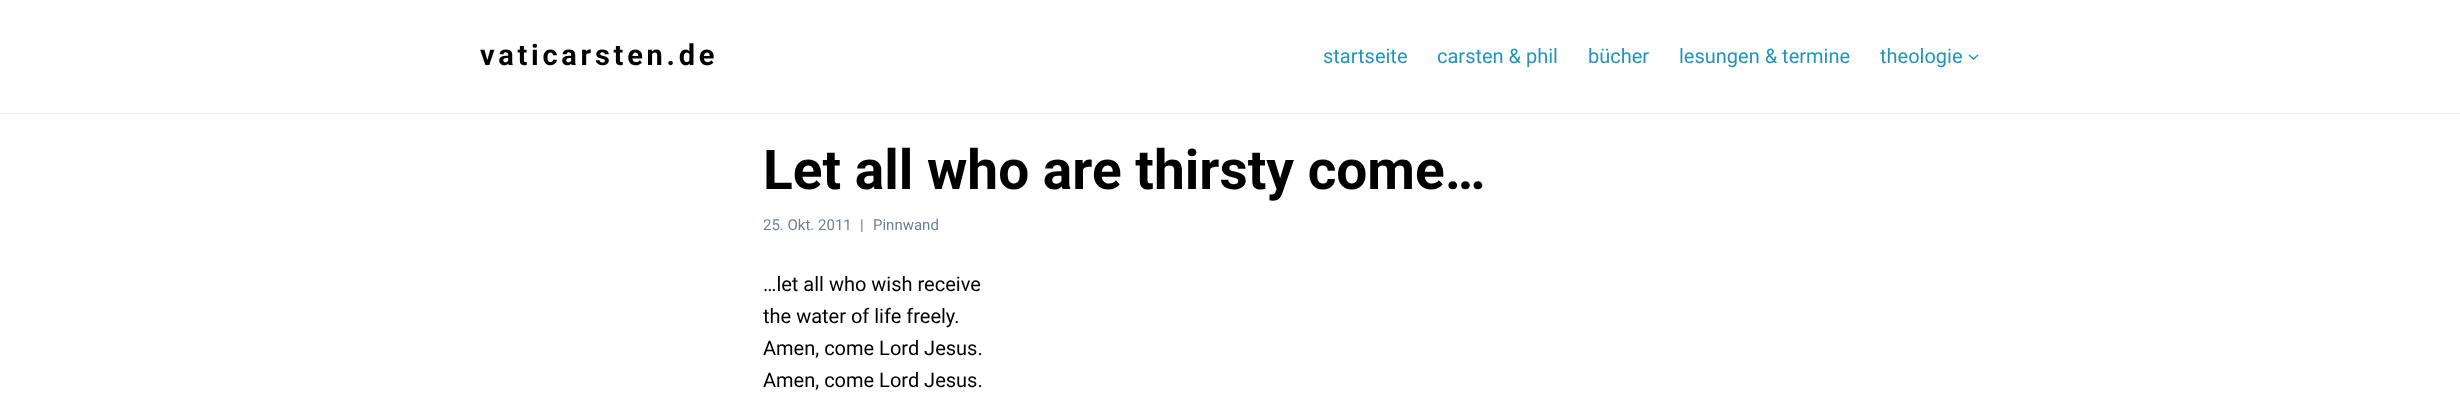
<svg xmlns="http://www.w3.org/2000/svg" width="2460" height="393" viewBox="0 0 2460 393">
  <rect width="100%" height="100%" fill="#ffffff"/>
  <rect x="0" y="113" width="2460" height="1" fill="#eaeaea"/>
  <text x="480" y="65" font-family="Roboto" font-size="29" font-weight="bold" letter-spacing="3.75" fill="#000000">vaticarsten.de</text>
  <text x="1323" y="63" font-family="Roboto" font-size="20" fill="#2794b5">startseite</text>
  <text x="1437" y="63" font-family="Roboto" font-size="20" fill="#2794b5">carsten &amp; phil</text>
  <text x="1588" y="63" font-family="Roboto" font-size="20" fill="#2794b5">bücher</text>
  <text x="1679" y="63" font-family="Roboto" font-size="20" fill="#2794b5">lesungen &amp; termine</text>
  <text x="1880" y="63" font-family="Roboto" font-size="20" fill="#2794b5">theologie</text>
  <path d="M1969 55L1973.5 59L1978 55" fill="none" stroke="#2794b5" stroke-width="1.5"/>
  <text x="763" y="189" font-family="Roboto" font-size="55" font-weight="bold" fill="#000000">Let all who are thirsty come…</text>
  <text x="763" y="230" font-family="Roboto" font-size="15" fill="#6f8099">25. Okt. 2011</text>
  <text x="860" y="230" font-family="Roboto" font-size="15" fill="#6f8099">|</text>
  <text x="873" y="230" font-family="Roboto" font-size="15" fill="#6f8099">Pinnwand</text>
  <text x="763" y="291" font-family="Roboto" font-size="20" fill="#000000">…let all who wish receive</text>
  <text x="763" y="323" font-family="Roboto" font-size="20" fill="#000000">the water of life freely.</text>
  <text x="763" y="355" font-family="Roboto" font-size="20" fill="#000000">Amen, come Lord Jesus.</text>
  <text x="763" y="387" font-family="Roboto" font-size="20" fill="#000000">Amen, come Lord Jesus.</text>
</svg>
